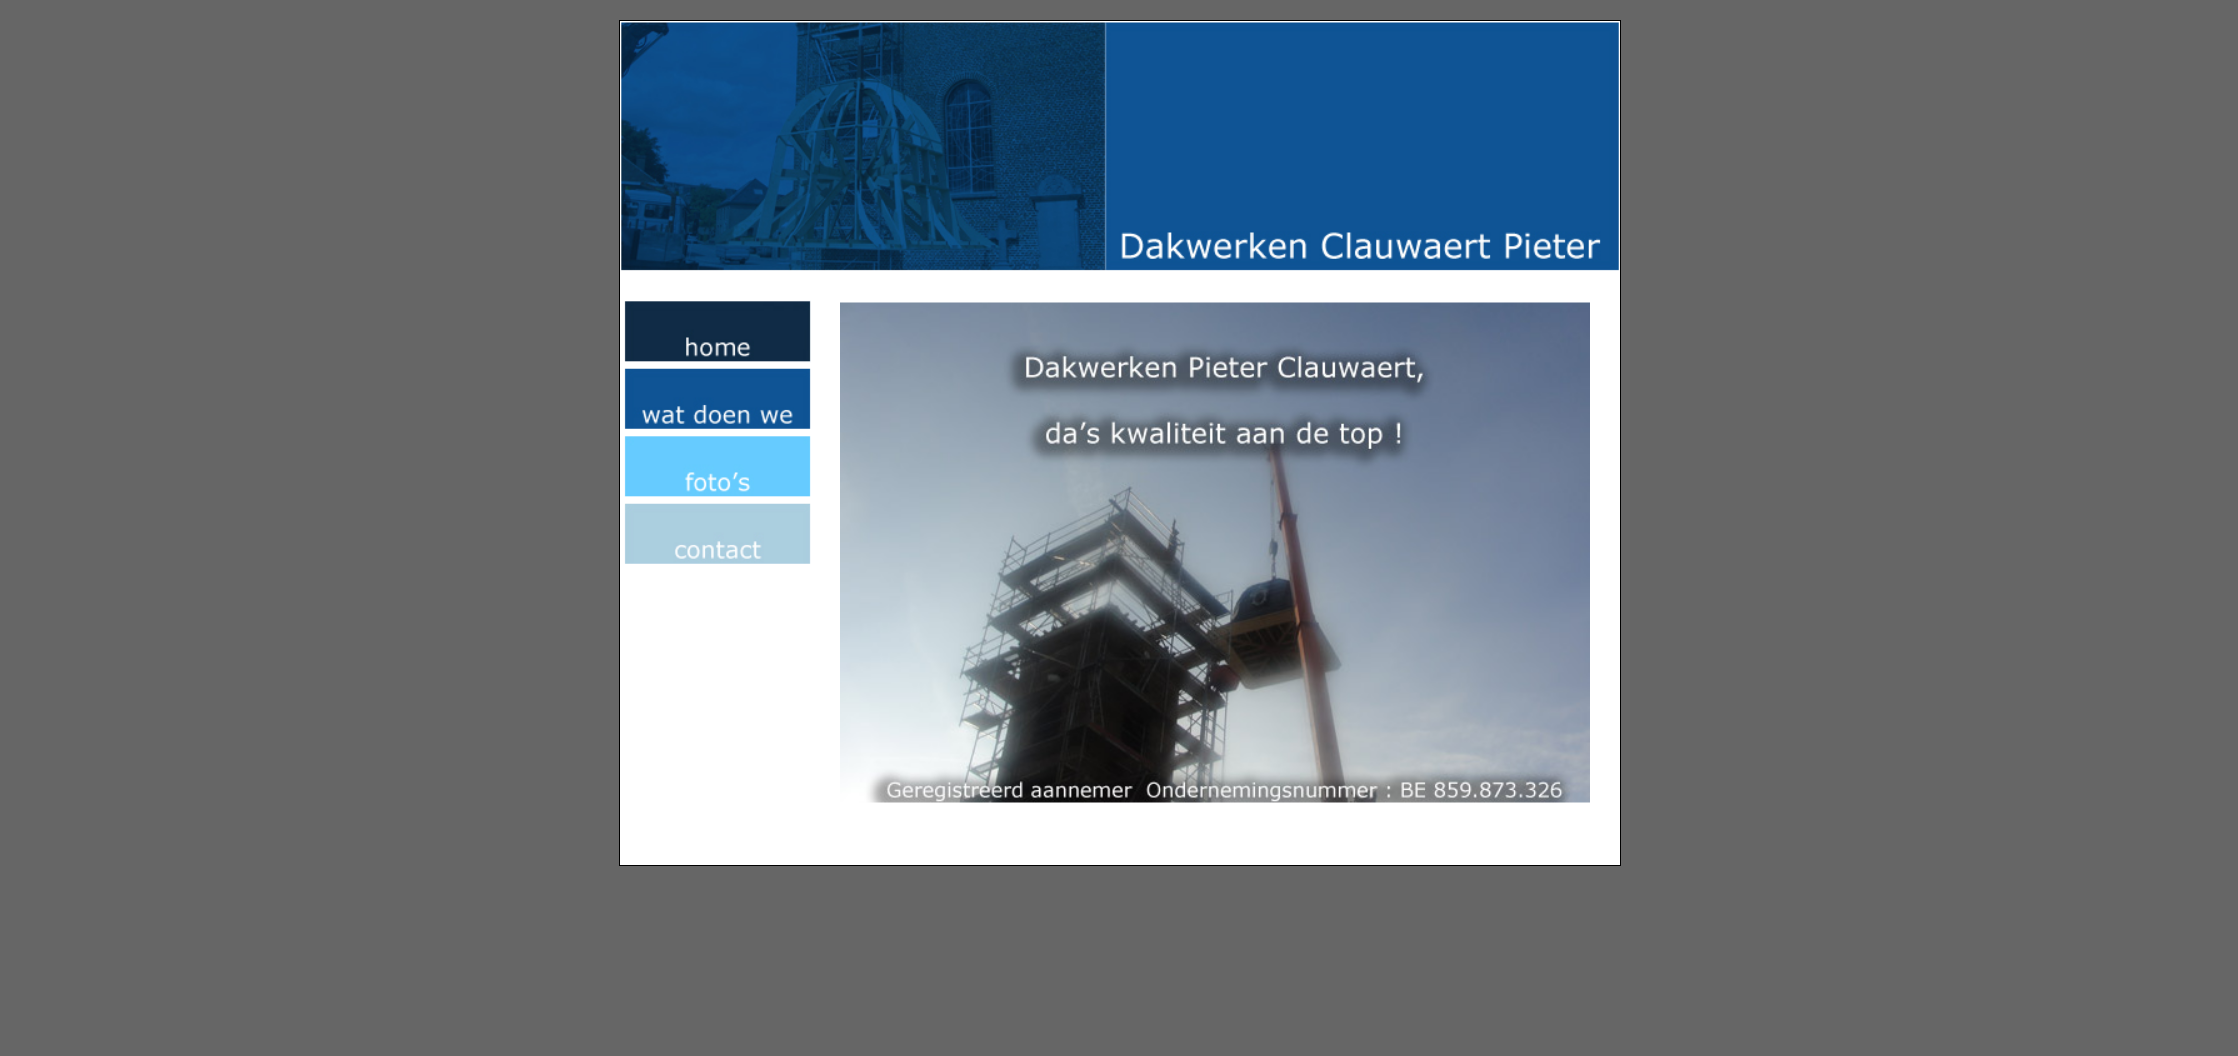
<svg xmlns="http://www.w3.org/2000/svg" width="2238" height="1056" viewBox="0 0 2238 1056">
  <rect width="100%" height="100%" fill="#666666"/>
  <rect x="619.5" y="20.5" width="1001" height="845" fill="#ffffff" stroke="#000000"/>
  <image x="621" y="22" width="998" height="249" href="img1.png"/>
  <image x="624" y="300" width="187" height="63" href="img2.png"/>
  <image x="624" y="368" width="187" height="61" href="img3.png"/>
  <image x="624" y="436" width="187" height="61" href="img4.png"/>
  <image x="624" y="503" width="187" height="61" href="img5.png"/>
  <image x="840" y="302" width="750" height="501" href="img6.png"/>
</svg>
